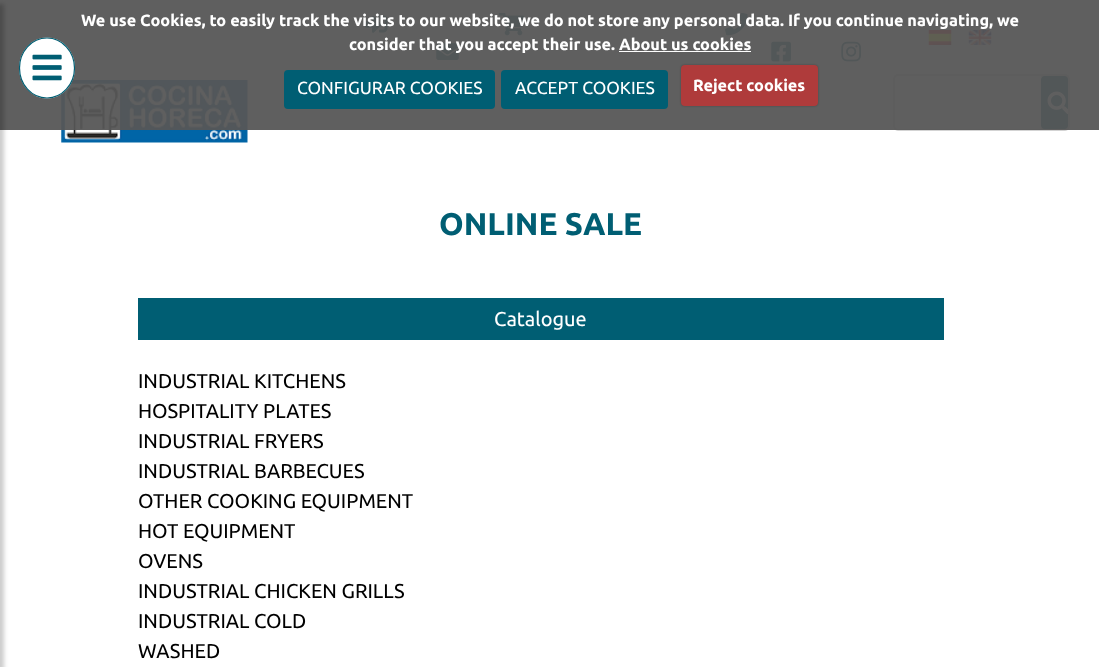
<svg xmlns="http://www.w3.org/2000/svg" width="1099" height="667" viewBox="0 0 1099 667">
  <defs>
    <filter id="blur1" x="-50%" y="-200%" width="200%" height="500%"><feGaussianBlur stdDeviation="2"/></filter>
    <filter id="blur2" x="-50%" y="-200%" width="200%" height="500%"><feGaussianBlur stdDeviation="1"/></filter>
  </defs>
  <rect width="100%" height="100%" fill="#ffffff"/>
  <image x="365" y="15" width="23" height="18" href="img2.png"/>
  <image x="498" y="13" width="26" height="23" href="img3.png"/>
  <image x="725" y="13" width="23" height="23" href="img4.png"/>
  <image x="436" y="43" width="23" height="17" href="img5.png"/>
  <image x="771" y="41" width="20" height="21" href="img6.png"/>
  <image x="841" y="41" width="20" height="21" href="img7.png"/>
  <image x="928" y="30" width="24" height="15" href="img8.png"/>
  <image x="968" y="30" width="24" height="15" href="img9.png"/>
  <image x="61" y="80" width="187" height="63" href="img10.png"/>
  <rect x="894.5" y="75.5" width="174" height="54" rx="3.5" fill="none" stroke="#d3d3d3" stroke-width="3"/>
  <path d="M897.5 76H1041V129H897.5C896 129 895 128 895 126.5V78.5C895 77 896 76 897.5 76Z" fill="#eeeeee"/>
  <rect x="1041" y="76" width="27" height="53" rx="4" fill="#005e73"/>
  <image x="1047" y="91" width="21" height="23" href="img11.png"/>
  <rect x="0" y="0" width="1099" height="130" fill="#565656" fill-opacity="0.95"/>
  <rect x="-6" y="4" width="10" height="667" fill="#000000" fill-opacity="0.2" filter="url(#blur1)"/>
  <ellipse cx="47" cy="68" rx="28" ry="30.5" fill="#ffffff"/>
  <path d="M47 38C62 38 74.5 51.5 74.5 68C74.5 84.5 62 98 47 98C31.5 98 19.5 84.5 19.5 68C19.5 51.5 31.5 38 47 38Z" fill="none" stroke="#005e73" stroke-width="1.2"/>
  <image x="32" y="54" width="30" height="27" href="img1.png"/>
  <text x="81" y="26" font-family="Ubuntu" font-size="16.25" font-weight="bold" fill="#ffffff">We use Cookies, to easily track the visits to our website, we do not store any personal data. If you continue navigating, we</text>
  <text x="349" y="50" font-family="Ubuntu" font-size="16.25" font-weight="bold" fill="#ffffff">consider that you accept their use. About us cookies</text>
  <rect x="619" y="51" width="132" height="1" fill="#ffffff"/>
  <rect x="284" y="70" width="211" height="39" rx="4" fill="#005e73"/>
  <text x="297" y="94" font-family="Ubuntu" font-size="17.5" fill="#ffffff">CONFIGURAR COOKIES</text>
  <rect x="501" y="70" width="167" height="39" rx="4" fill="#005e73"/>
  <text x="515" y="94" font-family="Ubuntu" font-size="17.5" fill="#ffffff">ACCEPT COOKIES</text>
  <rect x="681" y="65" width="137" height="41" rx="4" fill="#000000" fill-opacity="0.25" filter="url(#blur2)"/>
  <rect x="681" y="65" width="137" height="41" rx="4" fill="#af3b3b"/>
  <text x="693" y="91" font-family="Ubuntu" font-size="16.25" font-weight="bold" fill="#ffffff">Reject cookies</text>
  <text x="439" y="235" font-family="Ubuntu" font-size="31.25" font-weight="bold" fill="#005e73">ONLINE SALE</text>
  <rect x="138" y="298" width="806" height="42" fill="#005e73"/>
  <text x="494" y="326" font-family="Ubuntu" font-size="20" fill="#ffffff">Catalogue</text>
  <text x="138" y="388" font-family="Ubuntu" font-size="20" fill="#000000">INDUSTRIAL KITCHENS</text>
  <text x="138" y="418" font-family="Ubuntu" font-size="20" fill="#000000">HOSPITALITY PLATES</text>
  <text x="138" y="448" font-family="Ubuntu" font-size="20" fill="#000000">INDUSTRIAL FRYERS</text>
  <text x="138" y="478" font-family="Ubuntu" font-size="20" fill="#000000">INDUSTRIAL BARBECUES</text>
  <text x="138" y="508" font-family="Ubuntu" font-size="20" fill="#000000">OTHER COOKING EQUIPMENT</text>
  <text x="138" y="538" font-family="Ubuntu" font-size="20" fill="#000000">HOT EQUIPMENT</text>
  <text x="138" y="568" font-family="Ubuntu" font-size="20" fill="#000000">OVENS</text>
  <text x="138" y="598" font-family="Ubuntu" font-size="20" fill="#000000">INDUSTRIAL CHICKEN GRILLS</text>
  <text x="138" y="628" font-family="Ubuntu" font-size="20" fill="#000000">INDUSTRIAL COLD</text>
  <text x="138" y="658" font-family="Ubuntu" font-size="20" fill="#000000">WASHED</text>
</svg>
